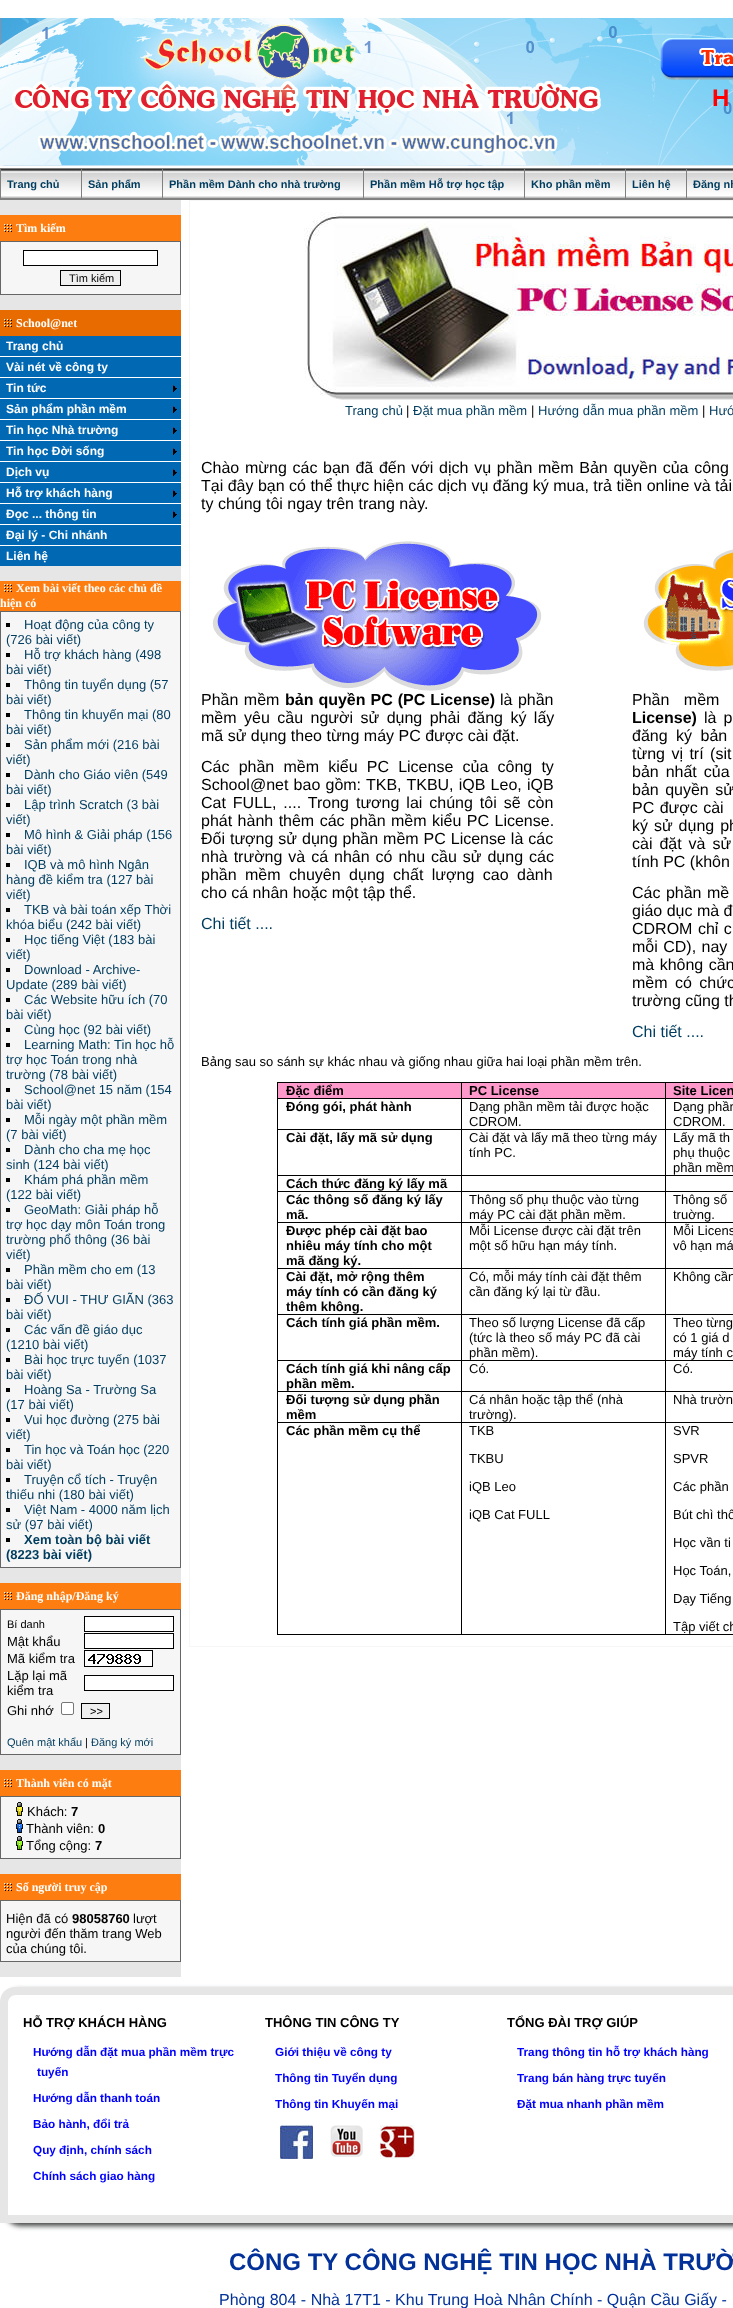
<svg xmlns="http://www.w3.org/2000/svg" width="733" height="2308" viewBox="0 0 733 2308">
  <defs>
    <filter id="blur1" x="-50%" y="-200%" width="200%" height="500%"><feGaussianBlur stdDeviation="2.5"/></filter>
  </defs>
  <rect width="100%" height="100%" fill="#ffffff"/>
  <image x="0" y="18" width="733" height="150" href="img1.png"/>
  <image x="660" y="38" width="73" height="42" href="img2.png"/>
  <text x="712" y="106" font-family="Liberation Sans" font-size="24" font-weight="bold" fill="#ff0103">H</text>
  <rect x="0" y="168" width="733" height="1" fill="#808080"/>
  <rect x="0" y="199" width="733" height="1" fill="#808080"/>
  <rect x="0" y="168" width="1" height="32" fill="#808080"/>
  <image x="1" y="169" width="80" height="30" href="img3.png"/>
  <text x="7" y="188" font-family="Liberation Sans" font-size="11" font-weight="bold" fill="#003c5e">Trang chủ</text>
  <image x="82" y="169" width="80" height="30" href="img3.png"/>
  <rect x="81" y="168" width="1" height="32" fill="#808080"/>
  <text x="88" y="188" font-family="Liberation Sans" font-size="11" font-weight="bold" fill="#003c5e">Sản phẩm</text>
  <image x="163" y="169" width="200" height="30" href="img4.png"/>
  <rect x="162" y="168" width="1" height="32" fill="#808080"/>
  <text x="169" y="188" font-family="Liberation Sans" font-size="11" font-weight="bold" fill="#003c5e">Phần mềm Dành cho nhà trường</text>
  <image x="364" y="169" width="160" height="30" href="img5.png"/>
  <rect x="363" y="168" width="1" height="32" fill="#808080"/>
  <text x="370" y="188" font-family="Liberation Sans" font-size="11" font-weight="bold" fill="#003c5e">Phần mềm Hỗ trợ học tập</text>
  <image x="525" y="169" width="100" height="30" href="img6.png"/>
  <rect x="524" y="168" width="1" height="32" fill="#808080"/>
  <text x="531" y="188" font-family="Liberation Sans" font-size="11" font-weight="bold" fill="#003c5e">Kho phần mềm</text>
  <image x="626" y="169" width="60" height="30" href="img7.png"/>
  <rect x="625" y="168" width="1" height="32" fill="#808080"/>
  <text x="632" y="188" font-family="Liberation Sans" font-size="11" font-weight="bold" fill="#003c5e">Liên hệ</text>
  <image x="687" y="169" width="46" height="30" href="img8.png"/>
  <rect x="686" y="168" width="1" height="32" fill="#808080"/>
  <text x="693" y="188" font-family="Liberation Sans" font-size="11" font-weight="bold" fill="#003c5e">Đăng nh</text>
  <rect x="0" y="200" width="181" height="1777" fill="#e6e6e6"/>
  <rect x="0" y="215" width="181" height="26" fill="#fd7d10"/>
  <image x="4" y="224" width="8" height="8" href="img9.png"/>
  <text x="16" y="232" font-family="Liberation Serif" font-size="12" font-weight="bold" fill="#ffffff">Tìm kiếm</text>
  <rect x="0" y="241" width="181" height="54" fill="#666666"/>
  <rect x="1" y="242" width="179" height="52" fill="#f6f6f6"/>
  <rect x="23.5" y="250.5" width="134" height="15" fill="#ffffff" stroke="#000000"/>
  <rect x="60.5" y="270.5" width="60" height="15" fill="#efefef" stroke="#000000"/>
  <text x="69" y="282" font-family="Liberation Sans" font-size="11" fill="#000000">Tìm kiếm</text>
  <rect x="0" y="310" width="181" height="26" fill="#e86b00"/>
  <image x="4" y="319" width="8" height="8" href="img10.png"/>
  <text x="16" y="327" font-family="Liberation Serif" font-size="12" font-weight="bold" fill="#ffffff">School@net</text>
  <rect x="0" y="356" width="181" height="190" fill="#ffffff"/>
  <rect x="0" y="336" width="181" height="20" fill="#0168b3"/>
  <text x="6" y="350" font-family="Liberation Sans" font-size="12" font-weight="bold" fill="#ffffff">Trang chủ</text>
  <rect x="0" y="357" width="181" height="20" fill="#0168b3"/>
  <text x="6" y="371" font-family="Liberation Sans" font-size="12" font-weight="bold" fill="#ffffff">Vài nét về công ty</text>
  <rect x="0" y="378" width="181" height="20" fill="#0168b3"/>
  <text x="6" y="392" font-family="Liberation Sans" font-size="12" font-weight="bold" fill="#ffffff">Tin tức</text>
  <image x="173" y="385" width="4" height="7" href="img11.png"/>
  <rect x="0" y="399" width="181" height="20" fill="#0168b3"/>
  <text x="6" y="413" font-family="Liberation Sans" font-size="12" font-weight="bold" fill="#ffffff">Sản phẩm phần mềm</text>
  <image x="173" y="406" width="4" height="7" href="img11.png"/>
  <rect x="0" y="420" width="181" height="20" fill="#0168b3"/>
  <text x="6" y="434" font-family="Liberation Sans" font-size="12" font-weight="bold" fill="#ffffff">Tin học Nhà trường</text>
  <image x="173" y="427" width="4" height="7" href="img11.png"/>
  <rect x="0" y="441" width="181" height="20" fill="#0168b3"/>
  <text x="6" y="455" font-family="Liberation Sans" font-size="12" font-weight="bold" fill="#ffffff">Tin học Đời sống</text>
  <image x="173" y="448" width="4" height="7" href="img11.png"/>
  <rect x="0" y="462" width="181" height="20" fill="#0168b3"/>
  <text x="6" y="476" font-family="Liberation Sans" font-size="12" font-weight="bold" fill="#ffffff">Dịch vụ</text>
  <image x="173" y="469" width="4" height="7" href="img11.png"/>
  <rect x="0" y="483" width="181" height="20" fill="#0168b3"/>
  <text x="6" y="497" font-family="Liberation Sans" font-size="12" font-weight="bold" fill="#ffffff">Hỗ trợ khách hàng</text>
  <image x="173" y="490" width="4" height="7" href="img11.png"/>
  <rect x="0" y="504" width="181" height="20" fill="#0168b3"/>
  <text x="6" y="518" font-family="Liberation Sans" font-size="12" font-weight="bold" fill="#ffffff">Đọc ... thông tin</text>
  <image x="173" y="511" width="4" height="7" href="img11.png"/>
  <rect x="0" y="525" width="181" height="20" fill="#0168b3"/>
  <text x="6" y="539" font-family="Liberation Sans" font-size="12" font-weight="bold" fill="#ffffff">Đại lý - Chi nhánh</text>
  <rect x="0" y="546" width="181" height="20" fill="#0168b3"/>
  <text x="6" y="560" font-family="Liberation Sans" font-size="12" font-weight="bold" fill="#ffffff">Liên hệ</text>
  <rect x="0" y="581" width="181" height="30" fill="#fd7d10"/>
  <image x="4" y="584" width="8" height="8" href="img9.png"/>
  <text x="16" y="592" font-family="Liberation Serif" font-size="12" font-weight="bold" fill="#ffffff">Xem bài viết theo các chủ đề</text>
  <text x="0" y="607" font-family="Liberation Serif" font-size="12" font-weight="bold" fill="#ffffff">hiện có</text>
  <rect x="0" y="611" width="181" height="957" fill="#666666"/>
  <rect x="1" y="612" width="179" height="955" fill="#f6f6f6"/>
  <rect x="6" y="623" width="4" height="4" fill="#000000"/>
  <text x="24" y="629" font-family="Liberation Sans" font-size="13" fill="#003c5e">Hoạt động của công ty</text>
  <text x="6" y="644" font-family="Liberation Sans" font-size="13" fill="#003c5e">(726 bài viết)</text>
  <rect x="6" y="653" width="4" height="4" fill="#000000"/>
  <text x="24" y="659" font-family="Liberation Sans" font-size="13" fill="#003c5e">Hỗ trợ khách hàng (498</text>
  <text x="6" y="674" font-family="Liberation Sans" font-size="13" fill="#003c5e">bài viết)</text>
  <rect x="6" y="683" width="4" height="4" fill="#000000"/>
  <text x="24" y="689" font-family="Liberation Sans" font-size="13" fill="#003c5e">Thông tin tuyển dụng (57</text>
  <text x="6" y="704" font-family="Liberation Sans" font-size="13" fill="#003c5e">bài viết)</text>
  <rect x="6" y="713" width="4" height="4" fill="#000000"/>
  <text x="24" y="719" font-family="Liberation Sans" font-size="13" fill="#003c5e">Thông tin khuyến mại (80</text>
  <text x="6" y="734" font-family="Liberation Sans" font-size="13" fill="#003c5e">bài viết)</text>
  <rect x="6" y="743" width="4" height="4" fill="#000000"/>
  <text x="24" y="749" font-family="Liberation Sans" font-size="13" fill="#003c5e">Sản phẩm mới (216 bài</text>
  <text x="6" y="764" font-family="Liberation Sans" font-size="13" fill="#003c5e">viết)</text>
  <rect x="6" y="773" width="4" height="4" fill="#000000"/>
  <text x="24" y="779" font-family="Liberation Sans" font-size="13" fill="#003c5e">Dành cho Giáo viên (549</text>
  <text x="6" y="794" font-family="Liberation Sans" font-size="13" fill="#003c5e">bài viết)</text>
  <rect x="6" y="803" width="4" height="4" fill="#000000"/>
  <text x="24" y="809" font-family="Liberation Sans" font-size="13" fill="#003c5e">Lập trình Scratch (3 bài</text>
  <text x="6" y="824" font-family="Liberation Sans" font-size="13" fill="#003c5e">viết)</text>
  <rect x="6" y="833" width="4" height="4" fill="#000000"/>
  <text x="24" y="839" font-family="Liberation Sans" font-size="13" fill="#003c5e">Mô hình &amp; Giải pháp (156</text>
  <text x="6" y="854" font-family="Liberation Sans" font-size="13" fill="#003c5e">bài viết)</text>
  <rect x="6" y="863" width="4" height="4" fill="#000000"/>
  <text x="24" y="869" font-family="Liberation Sans" font-size="13" fill="#003c5e">IQB và mô hình Ngân</text>
  <text x="6" y="884" font-family="Liberation Sans" font-size="13" fill="#003c5e">hàng đề kiểm tra (127 bài</text>
  <text x="6" y="899" font-family="Liberation Sans" font-size="13" fill="#003c5e">viết)</text>
  <rect x="6" y="908" width="4" height="4" fill="#000000"/>
  <text x="24" y="914" font-family="Liberation Sans" font-size="13" fill="#003c5e">TKB và bài toán xếp Thời</text>
  <text x="6" y="929" font-family="Liberation Sans" font-size="13" fill="#003c5e">khóa biểu (242 bài viết)</text>
  <rect x="6" y="938" width="4" height="4" fill="#000000"/>
  <text x="24" y="944" font-family="Liberation Sans" font-size="13" fill="#003c5e">Học tiếng Việt (183 bài</text>
  <text x="6" y="959" font-family="Liberation Sans" font-size="13" fill="#003c5e">viết)</text>
  <rect x="6" y="968" width="4" height="4" fill="#000000"/>
  <text x="24" y="974" font-family="Liberation Sans" font-size="13" fill="#003c5e">Download - Archive-</text>
  <text x="6" y="989" font-family="Liberation Sans" font-size="13" fill="#003c5e">Update (289 bài viết)</text>
  <rect x="6" y="998" width="4" height="4" fill="#000000"/>
  <text x="24" y="1004" font-family="Liberation Sans" font-size="13" fill="#003c5e">Các Website hữu ích (70</text>
  <text x="6" y="1019" font-family="Liberation Sans" font-size="13" fill="#003c5e">bài viết)</text>
  <rect x="6" y="1028" width="4" height="4" fill="#000000"/>
  <text x="24" y="1034" font-family="Liberation Sans" font-size="13" fill="#003c5e">Cùng học (92 bài viết)</text>
  <rect x="6" y="1043" width="4" height="4" fill="#000000"/>
  <text x="24" y="1049" font-family="Liberation Sans" font-size="13" fill="#003c5e">Learning Math: Tin học hỗ</text>
  <text x="6" y="1064" font-family="Liberation Sans" font-size="13" fill="#003c5e">trợ học Toán trong nhà</text>
  <text x="6" y="1079" font-family="Liberation Sans" font-size="13" fill="#003c5e">trường (78 bài viết)</text>
  <rect x="6" y="1088" width="4" height="4" fill="#000000"/>
  <text x="24" y="1094" font-family="Liberation Sans" font-size="13" fill="#003c5e">School@net 15 năm (154</text>
  <text x="6" y="1109" font-family="Liberation Sans" font-size="13" fill="#003c5e">bài viết)</text>
  <rect x="6" y="1118" width="4" height="4" fill="#000000"/>
  <text x="24" y="1124" font-family="Liberation Sans" font-size="13" fill="#003c5e">Mỗi ngày một phần mềm</text>
  <text x="6" y="1139" font-family="Liberation Sans" font-size="13" fill="#003c5e">(7 bài viết)</text>
  <rect x="6" y="1148" width="4" height="4" fill="#000000"/>
  <text x="24" y="1154" font-family="Liberation Sans" font-size="13" fill="#003c5e">Dành cho cha mẹ học</text>
  <text x="6" y="1169" font-family="Liberation Sans" font-size="13" fill="#003c5e">sinh (124 bài viết)</text>
  <rect x="6" y="1178" width="4" height="4" fill="#000000"/>
  <text x="24" y="1184" font-family="Liberation Sans" font-size="13" fill="#003c5e">Khám phá phần mềm</text>
  <text x="6" y="1199" font-family="Liberation Sans" font-size="13" fill="#003c5e">(122 bài viết)</text>
  <rect x="6" y="1208" width="4" height="4" fill="#000000"/>
  <text x="24" y="1214" font-family="Liberation Sans" font-size="13" fill="#003c5e">GeoMath: Giải pháp hỗ</text>
  <text x="6" y="1229" font-family="Liberation Sans" font-size="13" fill="#003c5e">trợ học dạy môn Toán trong</text>
  <text x="6" y="1244" font-family="Liberation Sans" font-size="13" fill="#003c5e">trường phổ thông (36 bài</text>
  <text x="6" y="1259" font-family="Liberation Sans" font-size="13" fill="#003c5e">viết)</text>
  <rect x="6" y="1268" width="4" height="4" fill="#000000"/>
  <text x="24" y="1274" font-family="Liberation Sans" font-size="13" fill="#003c5e">Phần mềm cho em (13</text>
  <text x="6" y="1289" font-family="Liberation Sans" font-size="13" fill="#003c5e">bài viết)</text>
  <rect x="6" y="1298" width="4" height="4" fill="#000000"/>
  <text x="24" y="1304" font-family="Liberation Sans" font-size="13" fill="#003c5e">ĐỐ VUI - THƯ GIÃN (363</text>
  <text x="6" y="1319" font-family="Liberation Sans" font-size="13" fill="#003c5e">bài viết)</text>
  <rect x="6" y="1328" width="4" height="4" fill="#000000"/>
  <text x="24" y="1334" font-family="Liberation Sans" font-size="13" fill="#003c5e">Các vấn đề giáo dục</text>
  <text x="6" y="1349" font-family="Liberation Sans" font-size="13" fill="#003c5e">(1210 bài viết)</text>
  <rect x="6" y="1358" width="4" height="4" fill="#000000"/>
  <text x="24" y="1364" font-family="Liberation Sans" font-size="13" fill="#003c5e">Bài học trực tuyến (1037</text>
  <text x="6" y="1379" font-family="Liberation Sans" font-size="13" fill="#003c5e">bài viết)</text>
  <rect x="6" y="1388" width="4" height="4" fill="#000000"/>
  <text x="24" y="1394" font-family="Liberation Sans" font-size="13" fill="#003c5e">Hoàng Sa - Trường Sa</text>
  <text x="6" y="1409" font-family="Liberation Sans" font-size="13" fill="#003c5e">(17 bài viết)</text>
  <rect x="6" y="1418" width="4" height="4" fill="#000000"/>
  <text x="24" y="1424" font-family="Liberation Sans" font-size="13" fill="#003c5e">Vui học đường (275 bài</text>
  <text x="6" y="1439" font-family="Liberation Sans" font-size="13" fill="#003c5e">viết)</text>
  <rect x="6" y="1448" width="4" height="4" fill="#000000"/>
  <text x="24" y="1454" font-family="Liberation Sans" font-size="13" fill="#003c5e">Tin học và Toán học (220</text>
  <text x="6" y="1469" font-family="Liberation Sans" font-size="13" fill="#003c5e">bài viết)</text>
  <rect x="6" y="1478" width="4" height="4" fill="#000000"/>
  <text x="24" y="1484" font-family="Liberation Sans" font-size="13" fill="#003c5e">Truyện cổ tích - Truyện</text>
  <text x="6" y="1499" font-family="Liberation Sans" font-size="13" fill="#003c5e">thiếu nhi (180 bài viết)</text>
  <rect x="6" y="1508" width="4" height="4" fill="#000000"/>
  <text x="24" y="1514" font-family="Liberation Sans" font-size="13" fill="#003c5e">Việt Nam - 4000 năm lịch</text>
  <text x="6" y="1529" font-family="Liberation Sans" font-size="13" fill="#003c5e">sử (97 bài viết)</text>
  <rect x="6" y="1538" width="4" height="4" fill="#000000"/>
  <text x="24" y="1544" font-family="Liberation Sans" font-size="13" font-weight="bold" fill="#003c5e">Xem toàn bộ bài viết</text>
  <text x="6" y="1559" font-family="Liberation Sans" font-size="13" font-weight="bold" fill="#003c5e">(8223 bài viết)</text>
  <rect x="0" y="1583" width="181" height="26" fill="#fd7d10"/>
  <image x="4" y="1592" width="8" height="8" href="img9.png"/>
  <text x="16" y="1600" font-family="Liberation Serif" font-size="12" font-weight="bold" fill="#ffffff">Đăng nhập/Đăng ký</text>
  <rect x="0" y="1609" width="181" height="146" fill="#666666"/>
  <rect x="1" y="1610" width="179" height="144" fill="#f6f6f6"/>
  <text x="7" y="1628" font-family="Liberation Sans" font-size="11" fill="#000000">Bí danh</text>
  <rect x="84.5" y="1616.5" width="89" height="15" fill="#ffffff" stroke="#000000"/>
  <text x="7" y="1646" font-family="Liberation Sans" font-size="13" fill="#000000">Mật khẩu</text>
  <rect x="84.5" y="1633.5" width="89" height="15" fill="#ffffff" stroke="#000000"/>
  <text x="7" y="1663" font-family="Liberation Sans" font-size="13" fill="#000000">Mã kiểm tra</text>
  <rect x="84.5" y="1650.5" width="68" height="16" fill="none" stroke="#000000"/>
  <image x="85" y="1651" width="67" height="15" href="img12.png"/>
  <text x="7" y="1680" font-family="Liberation Sans" font-size="13" fill="#000000">Lặp lại mã</text>
  <text x="7" y="1695" font-family="Liberation Sans" font-size="13" fill="#000000">kiểm tra</text>
  <rect x="84.5" y="1675.5" width="89" height="15" fill="#ffffff" stroke="#000000"/>
  <text x="7" y="1715" font-family="Liberation Sans" font-size="13" fill="#000000">Ghi nhớ</text>
  <rect x="61.5" y="1702.5" width="12" height="12" rx="1.5" fill="#ffffff" stroke="#767676"/>
  <rect x="81.5" y="1703.5" width="28" height="15" fill="#efefef" stroke="#000000"/>
  <text x="90" y="1715" font-family="Liberation Sans" font-size="11" fill="#000000">&gt;&gt;</text>
  <text x="7" y="1746" font-family="Liberation Sans" font-size="11" fill="#003c5e">Quên mật khẩu</text>
  <text x="85" y="1746" font-family="Liberation Sans" font-size="11" fill="#000000">|</text>
  <text x="91" y="1746" font-family="Liberation Sans" font-size="11" fill="#003c5e">Đăng ký mới</text>
  <rect x="0" y="1770" width="181" height="26" fill="#fd7d10"/>
  <image x="4" y="1779" width="8" height="8" href="img9.png"/>
  <text x="16" y="1787" font-family="Liberation Serif" font-size="12" font-weight="bold" fill="#ffffff">Thành viên có mặt</text>
  <rect x="0" y="1796" width="181" height="63" fill="#666666"/>
  <rect x="1" y="1797" width="179" height="61" fill="#f6f6f6"/>
  <image x="16" y="1802" width="7" height="14" href="img13.png"/>
  <text x="27" y="1816" font-family="Liberation Sans" font-size="13" fill="#000000">Khách:</text>
  <text x="71" y="1816" font-family="Liberation Sans" font-size="13" font-weight="bold" fill="#000000">7</text>
  <image x="16" y="1819" width="7" height="14" href="img14.png"/>
  <text x="26" y="1833" font-family="Liberation Sans" font-size="13" fill="#000000">Thành viên:</text>
  <text x="98" y="1833" font-family="Liberation Sans" font-size="13" font-weight="bold" fill="#000000">0</text>
  <image x="16" y="1836" width="7" height="14" href="img15.png"/>
  <text x="26" y="1850" font-family="Liberation Sans" font-size="13" fill="#000000">Tổng cộng:</text>
  <text x="95" y="1850" font-family="Liberation Sans" font-size="13" font-weight="bold" fill="#000000">7</text>
  <rect x="0" y="1874" width="181" height="26" fill="#fd7d10"/>
  <image x="4" y="1883" width="8" height="8" href="img9.png"/>
  <text x="16" y="1891" font-family="Liberation Serif" font-size="12" font-weight="bold" fill="#ffffff">Số người truy cập</text>
  <rect x="0" y="1900" width="181" height="62" fill="#666666"/>
  <rect x="1" y="1901" width="179" height="60" fill="#f6f6f6"/>
  <text x="6" y="1923" font-family="Liberation Sans" font-size="13" fill="#000000">Hiện đã có</text>
  <text x="72" y="1923" font-family="Liberation Sans" font-size="13" font-weight="bold" fill="#000000">98058760</text>
  <text x="133" y="1923" font-family="Liberation Sans" font-size="13" fill="#000000">lượt</text>
  <text x="6" y="1938" font-family="Liberation Sans" font-size="13" fill="#000000">người đến thăm trang Web</text>
  <text x="6" y="1953" font-family="Liberation Sans" font-size="13" fill="#000000">của chúng tôi.</text>
  <rect x="189" y="200" width="544" height="1447" fill="#f6f6f6"/>
  <rect x="190" y="201" width="543" height="1445" fill="#ffffff"/>
  <image x="304" y="212" width="429" height="188" href="img16.png"/>
  <text x="345" y="415" font-family="Liberation Sans" font-size="13" fill="#003c5e">Trang chủ</text>
  <text x="406" y="415" font-family="Liberation Sans" font-size="13" fill="#000000">|</text>
  <text x="413" y="415" font-family="Liberation Sans" font-size="13" fill="#003c5e">Đặt mua phần mềm</text>
  <text x="531" y="415" font-family="Liberation Sans" font-size="13" fill="#000000">|</text>
  <text x="538" y="415" font-family="Liberation Sans" font-size="13" fill="#003c5e">Hướng dẫn mua phần mềm</text>
  <text x="702" y="415" font-family="Liberation Sans" font-size="13" fill="#000000">|</text>
  <text x="709" y="415" font-family="Liberation Sans" font-size="13" fill="#003c5e">Hướ</text>
  <text x="201" y="473" word-spacing="1.25" font-family="Liberation Sans" font-size="16" fill="#000000">Chào mừng các bạn đã đến với dịch vụ phần mềm Bản quyền của công</text>
  <text x="201" y="491" font-family="Liberation Sans" font-size="16" fill="#000000">Tại đây bạn có thể thực hiện các dịch vụ đăng ký mua, trả tiền online và tải</text>
  <text x="201" y="509" font-family="Liberation Sans" font-size="16" fill="#000000">ty chúng tôi ngay trên trang này.</text>
  <image x="212" y="541" width="330" height="150" href="img17.png"/>
  <image x="643" y="549" width="90" height="122" href="img18.png"/>
  <text x="201" y="705" word-spacing="1" font-family="Liberation Sans" font-size="16" fill="#000000">Phần mềm</text>
  <text x="285" y="705" word-spacing="0.5" font-family="Liberation Sans" font-size="16" font-weight="bold" fill="#000000">bản quyền PC (PC License)</text>
  <text x="500" y="705" word-spacing="1" font-family="Liberation Sans" font-size="16" fill="#000000">là phần</text>
  <text x="201" y="723" word-spacing="3" font-family="Liberation Sans" font-size="16" fill="#000000">mềm yêu cầu người sử dụng phải đăng ký lấy</text>
  <text x="201" y="741" font-family="Liberation Sans" font-size="16" fill="#000000">mã sử dụng theo từng máy PC được cài đặt.</text>
  <text x="201" y="772" word-spacing="4.75" font-family="Liberation Sans" font-size="16" fill="#000000">Các phần mềm kiểu PC License của công ty</text>
  <text x="201" y="790" word-spacing="0.75" font-family="Liberation Sans" font-size="16" fill="#000000">School@net bao gồm: TKB, TKBU, iQB Leo, iQB</text>
  <text x="201" y="808" word-spacing="2.5" font-family="Liberation Sans" font-size="16" fill="#000000">Cat FULL, .... Trong tương lai chúng tôi sẽ còn</text>
  <text x="201" y="826" word-spacing="1" font-family="Liberation Sans" font-size="16" fill="#000000">phát hành thêm các phần mềm kiểu PC License.</text>
  <text x="201" y="844" word-spacing="0.5" font-family="Liberation Sans" font-size="16" fill="#000000">Đối tượng sử dụng phần mềm PC License là các</text>
  <text x="201" y="862" word-spacing="1.5" font-family="Liberation Sans" font-size="16" fill="#000000">nhà trường và cá nhân có nhu cầu sử dụng các</text>
  <text x="201" y="880" word-spacing="4" font-family="Liberation Sans" font-size="16" fill="#000000">phần mềm chuyên dụng chất lượng cao dành</text>
  <text x="201" y="898" font-family="Liberation Sans" font-size="16" fill="#000000">cho cá nhân hoặc một tập thể.</text>
  <text x="201" y="929" font-family="Liberation Sans" font-size="16" fill="#003c5e">Chi tiết ....</text>
  <text x="632" y="705" word-spacing="10" font-family="Liberation Sans" font-size="16" fill="#000000">Phần mềm</text>
  <text x="632" y="723" font-family="Liberation Sans" font-size="16" font-weight="bold" fill="#000000">License)</text>
  <text x="704" y="723" word-spacing="2.5" font-family="Liberation Sans" font-size="16" fill="#000000">là p</text>
  <text x="632" y="741" word-spacing="4" font-family="Liberation Sans" font-size="16" fill="#000000">đăng ký bản</text>
  <text x="632" y="759" word-spacing="2" font-family="Liberation Sans" font-size="16" fill="#000000">từng vị trí (sit</text>
  <text x="632" y="777" word-spacing="2.5" font-family="Liberation Sans" font-size="16" fill="#000000">bản nhất của</text>
  <text x="632" y="795" word-spacing="2" font-family="Liberation Sans" font-size="16" fill="#000000">bản quyền sử</text>
  <text x="632" y="813" word-spacing="1" font-family="Liberation Sans" font-size="16" fill="#000000">PC được cài</text>
  <text x="632" y="831" word-spacing="1.5" font-family="Liberation Sans" font-size="16" fill="#000000">ký sử dụng ph</text>
  <text x="632" y="849" word-spacing="2.5" font-family="Liberation Sans" font-size="16" fill="#000000">cài đặt và sử</text>
  <text x="632" y="867" font-family="Liberation Sans" font-size="16" fill="#000000">tính PC (khôn</text>
  <text x="632" y="898" word-spacing="1" font-family="Liberation Sans" font-size="16" fill="#000000">Các phần mề</text>
  <text x="632" y="916" font-family="Liberation Sans" font-size="16" fill="#000000">giáo dục mà đ</text>
  <text x="632" y="934" word-spacing="1" font-family="Liberation Sans" font-size="16" fill="#000000">CDROM chỉ c</text>
  <text x="632" y="952" word-spacing="1" font-family="Liberation Sans" font-size="16" fill="#000000">mỗi CD), nay</text>
  <text x="632" y="970" word-spacing="1" font-family="Liberation Sans" font-size="16" fill="#000000">mà không cần</text>
  <text x="632" y="988" word-spacing="3" font-family="Liberation Sans" font-size="16" fill="#000000">mềm có chức</text>
  <text x="632" y="1006" font-family="Liberation Sans" font-size="16" fill="#000000">trường cũng th</text>
  <text x="632" y="1037" font-family="Liberation Sans" font-size="16" fill="#003c5e">Chi tiết ....</text>
  <text x="201" y="1066" font-family="Liberation Sans" font-size="13" fill="#000000">Bảng sau so sánh sự khác nhau và giống nhau giữa hai loại phần mềm trên.</text>
  <rect x="278" y="1083" width="183" height="15" fill="#ff99cc"/>
  <rect x="277" y="1082" width="456" height="1" fill="#000000"/>
  <rect x="665" y="1634" width="68" height="1" fill="#000000"/>
  <rect x="665" y="1422" width="1" height="213" fill="#000000"/>
  <rect x="665" y="1422" width="68" height="1" fill="#000000"/>
  <rect x="665" y="1391" width="1" height="32" fill="#000000"/>
  <rect x="665" y="1391" width="68" height="1" fill="#000000"/>
  <rect x="665" y="1360" width="1" height="32" fill="#000000"/>
  <rect x="665" y="1360" width="68" height="1" fill="#000000"/>
  <rect x="665" y="1314" width="1" height="47" fill="#000000"/>
  <rect x="665" y="1314" width="68" height="1" fill="#000000"/>
  <rect x="665" y="1268" width="1" height="47" fill="#000000"/>
  <rect x="665" y="1268" width="68" height="1" fill="#000000"/>
  <rect x="665" y="1222" width="1" height="47" fill="#000000"/>
  <rect x="665" y="1222" width="68" height="1" fill="#000000"/>
  <rect x="665" y="1191" width="1" height="32" fill="#000000"/>
  <rect x="665" y="1191" width="68" height="1" fill="#000000"/>
  <rect x="665" y="1175" width="1" height="17" fill="#000000"/>
  <rect x="665" y="1175" width="68" height="1" fill="#000000"/>
  <rect x="665" y="1129" width="1" height="47" fill="#000000"/>
  <rect x="665" y="1129" width="68" height="1" fill="#000000"/>
  <rect x="665" y="1098" width="1" height="32" fill="#000000"/>
  <rect x="665" y="1098" width="68" height="1" fill="#000000"/>
  <rect x="665" y="1082" width="1" height="17" fill="#000000"/>
  <rect x="461" y="1634" width="205" height="1" fill="#000000"/>
  <rect x="461" y="1422" width="1" height="213" fill="#000000"/>
  <rect x="461" y="1422" width="205" height="1" fill="#000000"/>
  <rect x="461" y="1391" width="1" height="32" fill="#000000"/>
  <rect x="461" y="1391" width="205" height="1" fill="#000000"/>
  <rect x="461" y="1360" width="1" height="32" fill="#000000"/>
  <rect x="461" y="1360" width="205" height="1" fill="#000000"/>
  <rect x="461" y="1314" width="1" height="47" fill="#000000"/>
  <rect x="461" y="1314" width="205" height="1" fill="#000000"/>
  <rect x="461" y="1268" width="1" height="47" fill="#000000"/>
  <rect x="461" y="1268" width="205" height="1" fill="#000000"/>
  <rect x="461" y="1222" width="1" height="47" fill="#000000"/>
  <rect x="461" y="1222" width="205" height="1" fill="#000000"/>
  <rect x="461" y="1191" width="1" height="32" fill="#000000"/>
  <rect x="461" y="1191" width="205" height="1" fill="#000000"/>
  <rect x="461" y="1175" width="1" height="17" fill="#000000"/>
  <rect x="461" y="1175" width="205" height="1" fill="#000000"/>
  <rect x="461" y="1129" width="1" height="47" fill="#000000"/>
  <rect x="461" y="1129" width="205" height="1" fill="#000000"/>
  <rect x="461" y="1098" width="1" height="32" fill="#000000"/>
  <rect x="461" y="1098" width="205" height="1" fill="#000000"/>
  <rect x="461" y="1082" width="1" height="17" fill="#000000"/>
  <rect x="277" y="1634" width="185" height="1" fill="#000000"/>
  <rect x="277" y="1422" width="1" height="213" fill="#000000"/>
  <rect x="277" y="1422" width="185" height="1" fill="#000000"/>
  <rect x="277" y="1391" width="1" height="32" fill="#000000"/>
  <rect x="277" y="1391" width="185" height="1" fill="#000000"/>
  <rect x="277" y="1360" width="1" height="32" fill="#000000"/>
  <rect x="277" y="1360" width="185" height="1" fill="#000000"/>
  <rect x="277" y="1314" width="1" height="47" fill="#000000"/>
  <rect x="277" y="1314" width="185" height="1" fill="#000000"/>
  <rect x="277" y="1268" width="1" height="47" fill="#000000"/>
  <rect x="277" y="1268" width="185" height="1" fill="#000000"/>
  <rect x="277" y="1222" width="1" height="47" fill="#000000"/>
  <rect x="277" y="1222" width="185" height="1" fill="#000000"/>
  <rect x="277" y="1191" width="1" height="32" fill="#000000"/>
  <rect x="277" y="1191" width="185" height="1" fill="#000000"/>
  <rect x="277" y="1175" width="1" height="17" fill="#000000"/>
  <rect x="277" y="1175" width="185" height="1" fill="#000000"/>
  <rect x="277" y="1129" width="1" height="47" fill="#000000"/>
  <rect x="277" y="1129" width="185" height="1" fill="#000000"/>
  <rect x="277" y="1098" width="1" height="32" fill="#000000"/>
  <rect x="277" y="1098" width="185" height="1" fill="#000000"/>
  <rect x="277" y="1082" width="1" height="17" fill="#000000"/>
  <text x="286" y="1095" font-family="Liberation Sans" font-size="13" font-weight="bold" fill="#000000">Đặc điểm</text>
  <rect x="462" y="1083" width="203" height="15" fill="#ff99cc"/>
  <text x="469" y="1095" font-family="Liberation Sans" font-size="13" font-weight="bold" fill="#000000">PC License</text>
  <rect x="666" y="1083" width="67" height="15" fill="#ff99cc"/>
  <text x="673" y="1095" font-family="Liberation Sans" font-size="13" font-weight="bold" fill="#000000">Site Licen</text>
  <text x="286" y="1111" font-family="Liberation Sans" font-size="13" font-weight="bold" fill="#000000">Đóng gói, phát hành</text>
  <text x="469" y="1111" font-family="Liberation Sans" font-size="13" fill="#000000">Dạng phần mềm tải được hoặc</text>
  <text x="469" y="1126" font-family="Liberation Sans" font-size="13" fill="#000000">CDROM.</text>
  <text x="673" y="1111" font-family="Liberation Sans" font-size="13" fill="#000000">Dạng phần</text>
  <text x="673" y="1126" font-family="Liberation Sans" font-size="13" fill="#000000">CDROM.</text>
  <text x="286" y="1142" font-family="Liberation Sans" font-size="13" font-weight="bold" fill="#000000">Cài đặt, lấy mã sử dụng</text>
  <text x="469" y="1142" font-family="Liberation Sans" font-size="13" fill="#000000">Cài đặt và lấy mã theo từng máy</text>
  <text x="469" y="1157" font-family="Liberation Sans" font-size="13" fill="#000000">tính PC.</text>
  <text x="673" y="1142" font-family="Liberation Sans" font-size="13" fill="#000000">Lấy mã th</text>
  <text x="673" y="1157" font-family="Liberation Sans" font-size="13" fill="#000000">phụ thuộc</text>
  <text x="673" y="1172" font-family="Liberation Sans" font-size="13" fill="#000000">phần mềm</text>
  <text x="286" y="1188" font-family="Liberation Sans" font-size="13" font-weight="bold" fill="#000000">Cách thức đăng ký lấy mã</text>
  <text x="286" y="1204" font-family="Liberation Sans" font-size="13" font-weight="bold" fill="#000000">Các thông số đăng ký lấy</text>
  <text x="286" y="1219" font-family="Liberation Sans" font-size="13" font-weight="bold" fill="#000000">mã.</text>
  <text x="469" y="1204" font-family="Liberation Sans" font-size="13" fill="#000000">Thông số phụ thuộc vào từng</text>
  <text x="469" y="1219" font-family="Liberation Sans" font-size="13" fill="#000000">máy PC cài đặt phần mềm.</text>
  <text x="673" y="1204" font-family="Liberation Sans" font-size="13" fill="#000000">Thông số</text>
  <text x="673" y="1219" font-family="Liberation Sans" font-size="13" fill="#000000">truờng.</text>
  <text x="286" y="1235" font-family="Liberation Sans" font-size="13" font-weight="bold" fill="#000000">Được phép cài đặt bao</text>
  <text x="286" y="1250" font-family="Liberation Sans" font-size="13" font-weight="bold" fill="#000000">nhiêu máy tính cho một</text>
  <text x="286" y="1265" font-family="Liberation Sans" font-size="13" font-weight="bold" fill="#000000">mã đăng ký.</text>
  <text x="469" y="1235" font-family="Liberation Sans" font-size="13" fill="#000000">Mỗi License được cài đặt trên</text>
  <text x="469" y="1250" font-family="Liberation Sans" font-size="13" fill="#000000">một số hữu hạn máy tính.</text>
  <text x="673" y="1235" font-family="Liberation Sans" font-size="13" fill="#000000">Mỗi Licens</text>
  <text x="673" y="1250" font-family="Liberation Sans" font-size="13" fill="#000000">vô hạn má</text>
  <text x="286" y="1281" font-family="Liberation Sans" font-size="13" font-weight="bold" fill="#000000">Cài đặt, mở rộng thêm</text>
  <text x="286" y="1296" font-family="Liberation Sans" font-size="13" font-weight="bold" fill="#000000">máy tính có cần đăng ký</text>
  <text x="286" y="1311" font-family="Liberation Sans" font-size="13" font-weight="bold" fill="#000000">thêm không.</text>
  <text x="469" y="1281" font-family="Liberation Sans" font-size="13" fill="#000000">Có, mỗi máy tính cài đặt thêm</text>
  <text x="469" y="1296" font-family="Liberation Sans" font-size="13" fill="#000000">cần đăng ký lại từ đầu.</text>
  <text x="673" y="1281" font-family="Liberation Sans" font-size="13" fill="#000000">Không cần</text>
  <text x="286" y="1327" font-family="Liberation Sans" font-size="13" font-weight="bold" fill="#000000">Cách tính giá phần mềm.</text>
  <text x="469" y="1327" font-family="Liberation Sans" font-size="13" fill="#000000">Theo số lượng License đã cấp</text>
  <text x="469" y="1342" font-family="Liberation Sans" font-size="13" fill="#000000">(tức là theo số máy PC đã cài</text>
  <text x="469" y="1357" font-family="Liberation Sans" font-size="13" fill="#000000">phần mềm).</text>
  <text x="673" y="1327" font-family="Liberation Sans" font-size="13" fill="#000000">Theo từng</text>
  <text x="673" y="1342" font-family="Liberation Sans" font-size="13" fill="#000000">có 1 giá d</text>
  <text x="673" y="1357" font-family="Liberation Sans" font-size="13" fill="#000000">máy tính c</text>
  <text x="286" y="1373" font-family="Liberation Sans" font-size="13" font-weight="bold" fill="#000000">Cách tính giá khi nâng cấp</text>
  <text x="286" y="1388" font-family="Liberation Sans" font-size="13" font-weight="bold" fill="#000000">phần mềm.</text>
  <text x="469" y="1373" font-family="Liberation Sans" font-size="13" fill="#000000">Có.</text>
  <text x="673" y="1373" font-family="Liberation Sans" font-size="13" fill="#000000">Có.</text>
  <text x="286" y="1404" font-family="Liberation Sans" font-size="13" font-weight="bold" fill="#000000">Đối tượng sử dụng phần</text>
  <text x="286" y="1419" font-family="Liberation Sans" font-size="13" font-weight="bold" fill="#000000">mềm</text>
  <text x="469" y="1404" font-family="Liberation Sans" font-size="13" fill="#000000">Cá nhân hoặc tập thể (nhà</text>
  <text x="469" y="1419" font-family="Liberation Sans" font-size="13" fill="#000000">trường).</text>
  <text x="673" y="1404" font-family="Liberation Sans" font-size="13" fill="#000000">Nhà trườn</text>
  <text x="286" y="1435" font-family="Liberation Sans" font-size="13" font-weight="bold" fill="#000000">Các phần mềm cụ thể</text>
  <text x="469" y="1435" font-family="Liberation Sans" font-size="13" fill="#000000">TKB</text>
  <text x="469" y="1463" font-family="Liberation Sans" font-size="13" fill="#000000">TKBU</text>
  <text x="469" y="1491" font-family="Liberation Sans" font-size="13" fill="#000000">iQB Leo</text>
  <text x="469" y="1519" font-family="Liberation Sans" font-size="13" fill="#000000">iQB Cat FULL</text>
  <text x="673" y="1435" font-family="Liberation Sans" font-size="13" fill="#000000">SVR</text>
  <text x="673" y="1463" font-family="Liberation Sans" font-size="13" fill="#000000">SPVR</text>
  <text x="673" y="1491" font-family="Liberation Sans" font-size="13" fill="#000000">Các phần</text>
  <text x="673" y="1519" font-family="Liberation Sans" font-size="13" fill="#000000">Bút chì thô</text>
  <text x="673" y="1547" font-family="Liberation Sans" font-size="13" fill="#000000">Học vần ti</text>
  <text x="673" y="1575" font-family="Liberation Sans" font-size="13" fill="#000000">Học Toán,</text>
  <text x="673" y="1603" font-family="Liberation Sans" font-size="13" fill="#000000">Dạy Tiếng</text>
  <text x="673" y="1631" font-family="Liberation Sans" font-size="13" fill="#000000">Tập viết ch</text>
  <rect x="5" y="1990" width="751" height="236" rx="15" fill="#454646" filter="url(#blur1)"/>
  <path d="M15 1987H733C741.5 1987 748 1993.5 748 2002V2223H0V2002C0 1993.5 6.5 1987 15 1987Z" fill="#e6e6e6"/>
  <path d="M16 1995H733C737.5 1995 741 1998.5 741 2003V2215H8V2003C8 1998.5 11.5 1995 16 1995Z" fill="#ffffff"/>
  <text x="23" y="2027" font-family="Liberation Sans" font-size="13" font-weight="bold" fill="#000000">HỖ TRỢ KHÁCH HÀNG</text>
  <text x="33" y="2056" font-family="Liberation Sans" font-size="11.75" font-weight="bold" fill="#0000ff">Hướng dẫn đặt mua phần mềm trực</text>
  <text x="37" y="2076" font-family="Liberation Sans" font-size="11.75" font-weight="bold" fill="#0000ff">tuyến</text>
  <text x="33" y="2102" font-family="Liberation Sans" font-size="11.75" font-weight="bold" fill="#0000ff">Hướng dẫn thanh toán</text>
  <text x="33" y="2128" font-family="Liberation Sans" font-size="11.75" font-weight="bold" fill="#0000ff">Bảo hành, đổi trả</text>
  <text x="33" y="2154" font-family="Liberation Sans" font-size="11.75" font-weight="bold" fill="#0000ff">Quy định, chính sách</text>
  <text x="33" y="2180" font-family="Liberation Sans" font-size="11.75" font-weight="bold" fill="#0000ff">Chính sách giao hàng</text>
  <text x="265" y="2027" font-family="Liberation Sans" font-size="13" font-weight="bold" fill="#000000">THÔNG TIN CÔNG TY</text>
  <text x="275" y="2056" font-family="Liberation Sans" font-size="11.75" font-weight="bold" fill="#0000ff">Giới thiệu về công ty</text>
  <text x="275" y="2082" font-family="Liberation Sans" font-size="11.75" font-weight="bold" fill="#0000ff">Thông tin Tuyển dụng</text>
  <text x="275" y="2108" font-family="Liberation Sans" font-size="11.75" font-weight="bold" fill="#0000ff">Thông tin Khuyến mại</text>
  <image x="280" y="2125" width="33" height="34" href="img19.png"/>
  <image x="330" y="2125" width="33" height="32" href="img20.png"/>
  <image x="380" y="2125" width="35" height="34" href="img21.png"/>
  <text x="507" y="2027" font-family="Liberation Sans" font-size="13" font-weight="bold" fill="#000000">TỔNG ĐÀI TRỢ GIÚP</text>
  <text x="517" y="2056" font-family="Liberation Sans" font-size="11.75" font-weight="bold" fill="#0000ff">Trang thông tin hỗ trợ khách hàng</text>
  <text x="517" y="2082" font-family="Liberation Sans" font-size="11.75" font-weight="bold" fill="#0000ff">Trang bán hàng trực tuyến</text>
  <text x="517" y="2108" font-family="Liberation Sans" font-size="11.75" font-weight="bold" fill="#0000ff">Đặt mua nhanh phần mềm</text>
  <text x="229" y="2270" font-family="Liberation Sans" font-size="24" font-weight="bold" fill="#023199">CÔNG TY CÔNG NGHỆ TIN HỌC NHÀ TRƯỜ</text>
  <text x="219" y="2305" font-family="Liberation Sans" font-size="16" fill="#023199">Phòng 804 - Nhà 17T1 - Khu Trung Hoà Nhân Chính - Quận Cầu Giấy -</text>
</svg>
